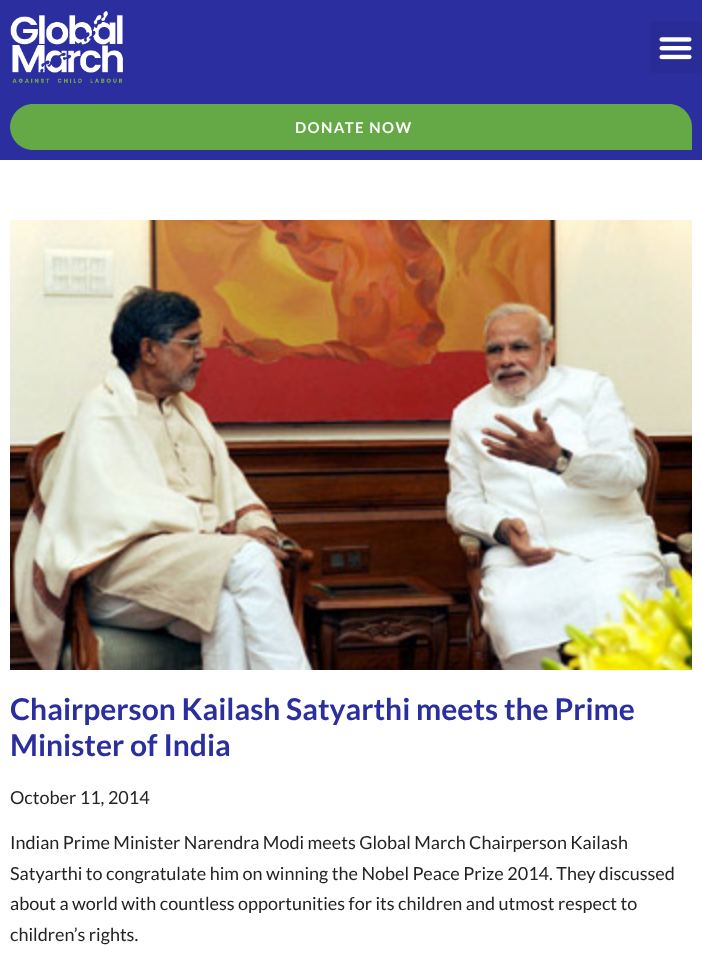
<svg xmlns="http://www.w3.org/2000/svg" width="702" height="954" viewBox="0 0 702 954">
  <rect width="100%" height="100%" fill="#ffffff"/>
  <rect x="0" y="0" width="702" height="160" fill="#2b2e9e"/>
  <image x="10" y="11" width="113" height="72" href="img1.png"/>
  <rect x="650" y="21" width="52" height="52" rx="3" fill="#292c96"/>
  <image x="659" y="37" width="33" height="23" href="img2.png"/>
  <path d="M33 104H669C681.5 104 692 114.5 692 127V150H33C20.5 150 10 139.5 10 127C10 114.5 20.5 104 33 104Z" fill="#64a945"/>
  <text x="295" y="133" font-family="Lato" font-size="15" font-weight="bold" letter-spacing="1.4" fill="#ffffff">DONATE NOW</text>
  <image x="10" y="220" width="682" height="450" href="img3.png"/>
  <text x="10" y="720" font-family="Lato" font-size="30" font-weight="bold" fill="#2b2e9e">Chairperson Kailash Satyarthi meets the Prime</text>
  <text x="10" y="756" font-family="Lato" font-size="30" font-weight="bold" fill="#2b2e9e">Minister of India</text>
  <text x="10" y="804" font-family="Lato" font-size="18" fill="#232323">October 11, 2014</text>
  <text x="10" y="849" font-family="Lato" font-size="18" fill="#232323">Indian Prime Minister Narendra Modi meets Global March Chairperson Kailash</text>
  <text x="10" y="880" font-family="Lato" font-size="18" fill="#232323">Satyarthi to congratulate him on winning the Nobel Peace Prize 2014. They discussed</text>
  <text x="10" y="910" font-family="Lato" font-size="18" fill="#232323">about a world with countless opportunities for its children and utmost respect to</text>
  <text x="10" y="941" font-family="Lato" font-size="18" fill="#232323">children’s rights.</text>
</svg>
